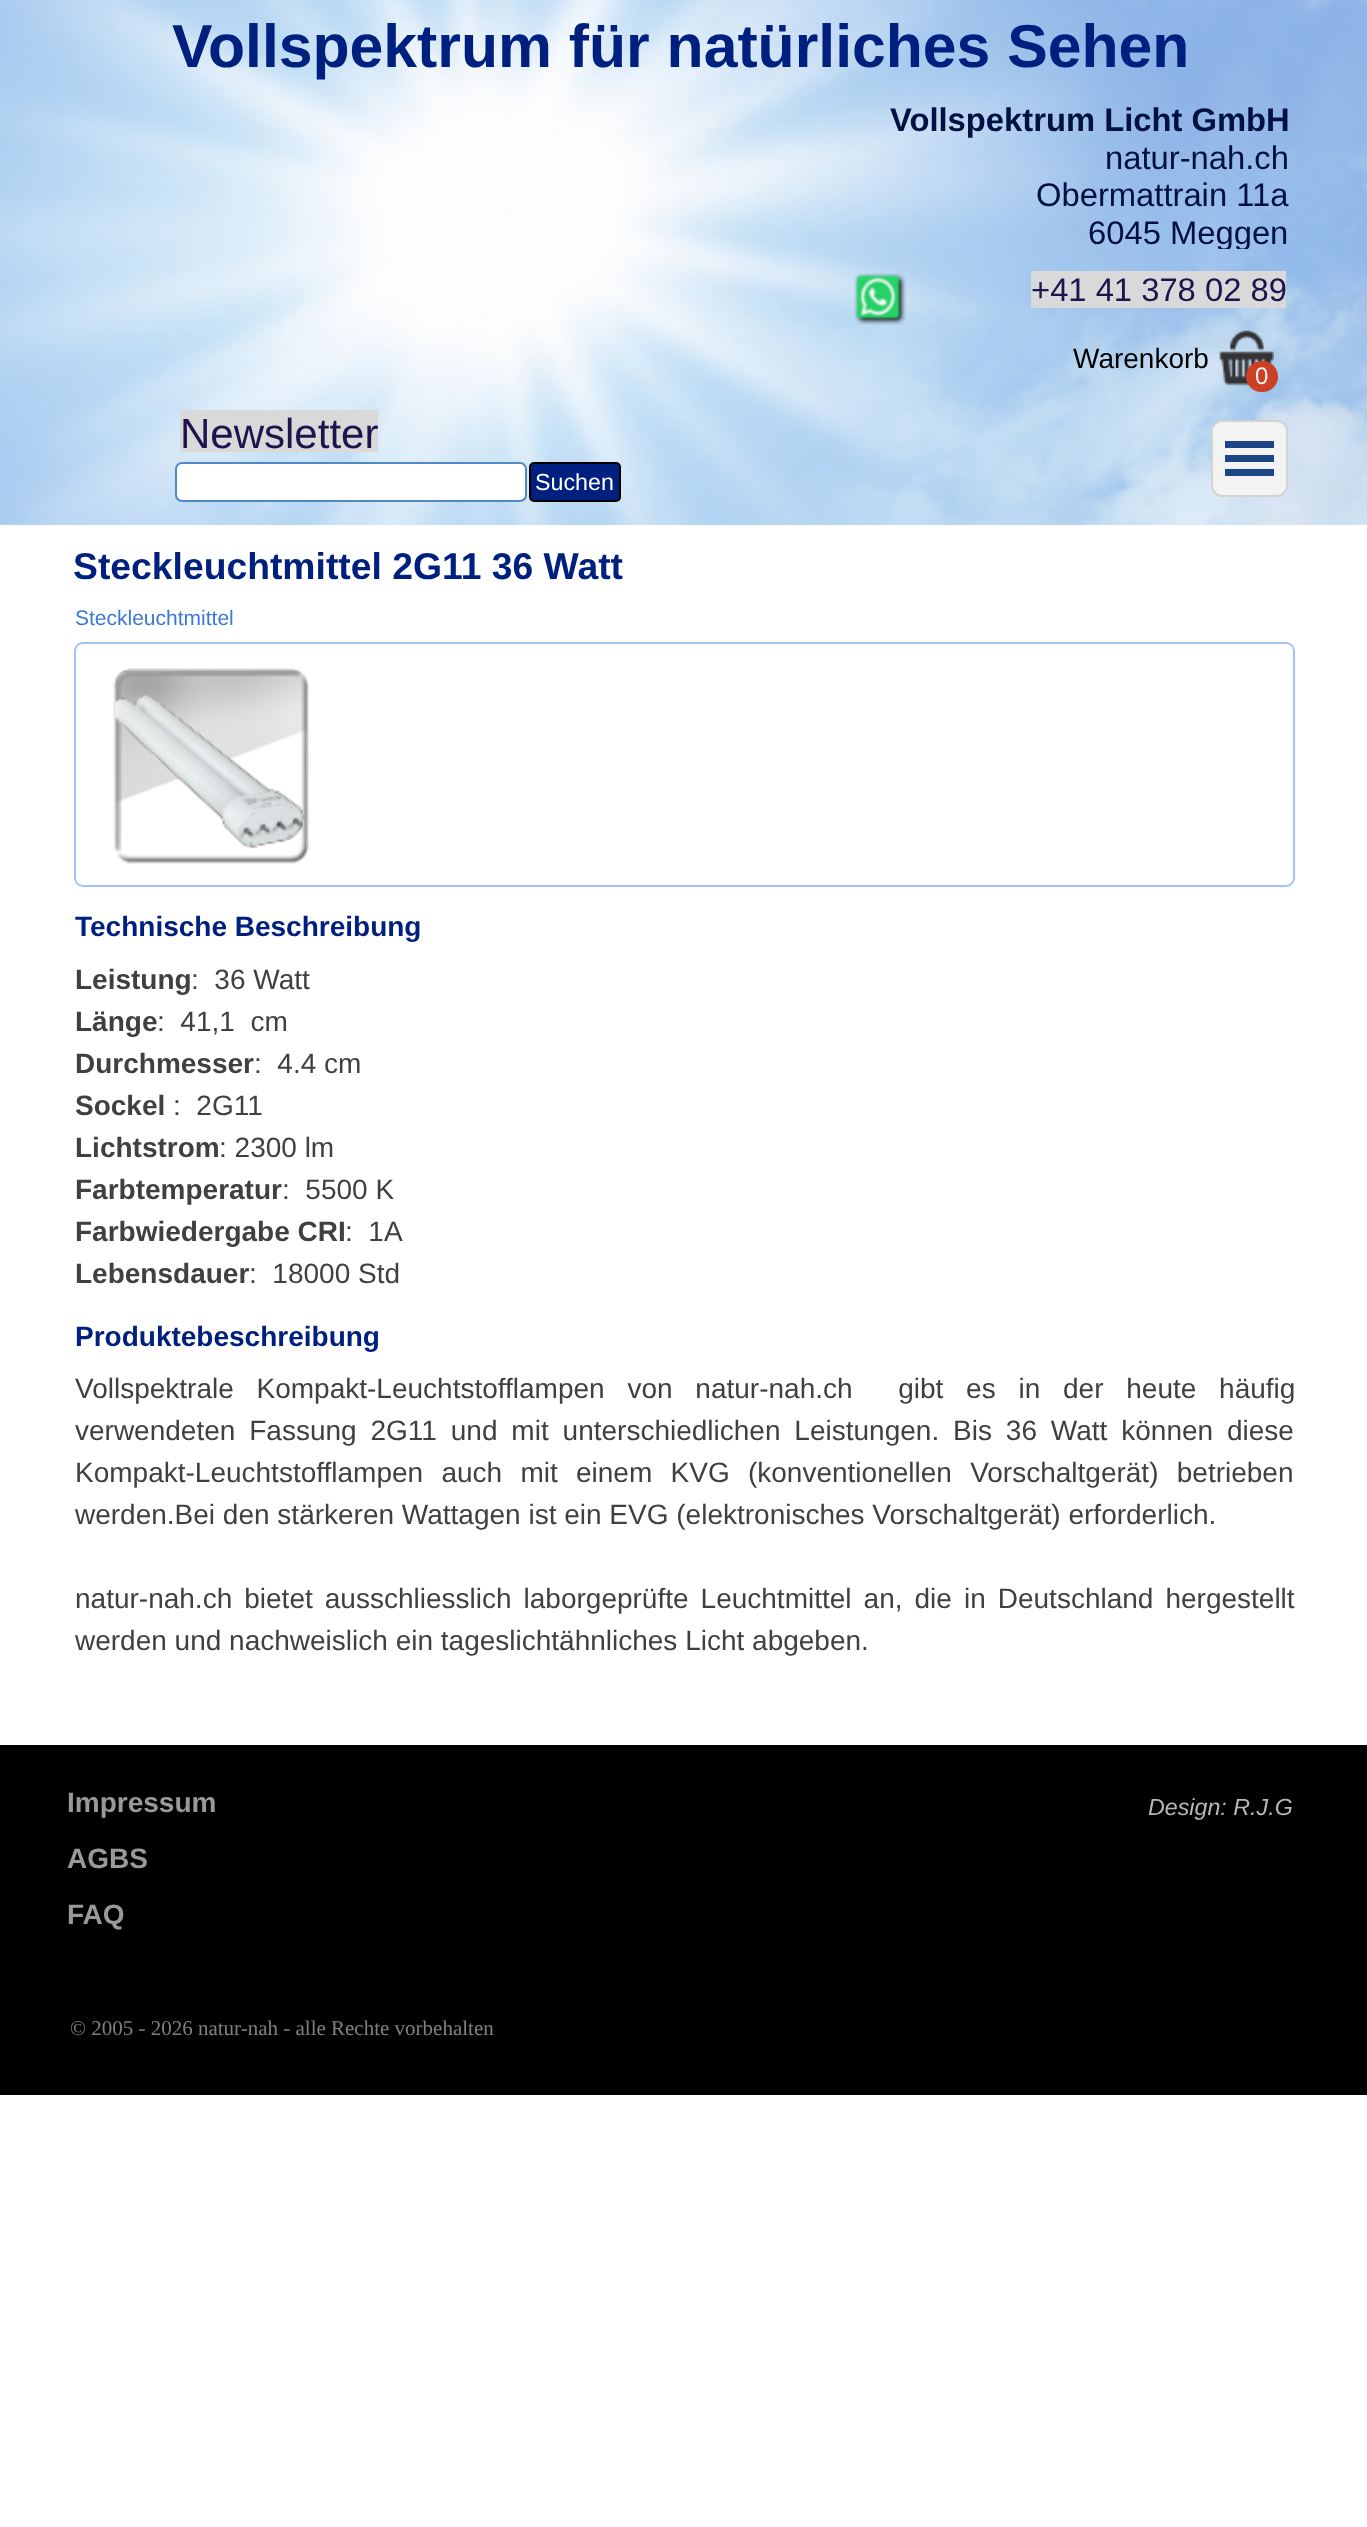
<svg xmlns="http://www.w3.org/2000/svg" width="1367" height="2527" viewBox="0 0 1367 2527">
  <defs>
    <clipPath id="clip1"><rect x="849" y="102" width="439" height="147"/></clipPath>
  </defs>
  <rect width="100%" height="100%" fill="#ffffff"/>
  <image x="0" y="0" width="1367" height="525" href="img1.png"/>
  <text x="172" y="67" font-family="Liberation Sans" font-size="60.7" font-weight="bold" fill="#002080">Vollspektrum für natürliches Sehen</text>
  <text x="890" y="131" font-family="Liberation Sans" font-size="32.75" font-weight="bold" fill="#001040">Vollspektrum Licht GmbH</text>
  <text x="1105" y="169" font-family="Liberation Sans" font-size="32.75" fill="#001040">natur-nah.ch</text>
  <text x="1036" y="206" font-family="Liberation Sans" font-size="32.75" fill="#001040">Obermattrain 11a</text>
  <g clip-path="url(#clip1)">
    <text x="1088" y="244" font-family="Liberation Sans" font-size="32.75" fill="#001040">6045 Meggen</text>
  </g>
  <image x="854" y="273" width="52" height="52" href="img2.png"/>
  <rect x="1031" y="271" width="255" height="37" fill="#d9d9d9"/>
  <text x="1031" y="301" font-family="Liberation Sans" font-size="32.75" fill="#20124d">+41 41 378 02 89</text>
  <text x="1073" y="368" font-family="Liberation Sans" font-size="28" fill="#000000">Warenkorb</text>
  <image x="1219" y="330" width="55" height="56" href="img3.png"/>
  <rect x="1246" y="361" width="32" height="31" rx="15.5" fill="#cc4125"/>
  <text x="1255" y="384" font-family="Liberation Sans" font-size="24" fill="#f3f3f3">0</text>
  <rect x="180" y="410" width="198" height="42" fill="#d9d9d9"/>
  <text x="180" y="448" font-family="Liberation Sans" font-size="42" fill="#20124d">Newsletter</text>
  <rect x="176" y="463" width="350" height="38" rx="6" fill="#ffffff" stroke="#4f8ac7" stroke-width="2"/>
  <rect x="530" y="463" width="90" height="38" rx="4" fill="#002080" stroke="#000000" stroke-width="2"/>
  <text x="535" y="490" font-family="Liberation Sans" font-size="23.25" fill="#ffffff">Suchen</text>
  <rect x="1212" y="421" width="75" height="75" rx="10" fill="#f3f3f3" stroke="#d3d3d3" stroke-width="2"/>
  <rect x="1225" y="441" width="49" height="7" fill="#1c4587"/>
  <rect x="1225" y="455" width="49" height="7" fill="#1c4587"/>
  <rect x="1225" y="469" width="49" height="7" fill="#1c4587"/>
  <text x="73" y="579" font-family="Liberation Sans" font-size="37.3" font-weight="bold" fill="#002080">Steckleuchtmittel 2G11 36 Watt</text>
  <text x="75" y="625" font-family="Liberation Sans" font-size="21" fill="#3c78d8">Steckleuchtmittel</text>
  <rect x="75" y="643" width="1219" height="243" rx="8" fill="none" stroke="#a4c2f4" stroke-width="2"/>
  <image x="113" y="668" width="196" height="196" href="img4.png"/>
  <text x="75" y="936" font-family="Liberation Sans" font-size="28" font-weight="bold" fill="#002080">Technische Beschreibung</text>
  <text x="75" y="989" font-family="Liberation Sans" font-size="28" font-weight="bold" fill="#404040">Leistung</text>
  <text x="191" y="989" font-family="Liberation Sans" font-size="28" fill="#404040" xml:space="preserve">:  36 Watt</text>
  <text x="75" y="1031" font-family="Liberation Sans" font-size="28" font-weight="bold" fill="#404040">Länge</text>
  <text x="157" y="1031" font-family="Liberation Sans" font-size="28" fill="#404040" xml:space="preserve">:  41,1  cm</text>
  <text x="75" y="1073" font-family="Liberation Sans" font-size="28" font-weight="bold" fill="#404040">Durchmesser</text>
  <text x="254" y="1073" font-family="Liberation Sans" font-size="28" fill="#404040" xml:space="preserve">:  4.4 cm</text>
  <text x="75" y="1115" font-family="Liberation Sans" font-size="28" font-weight="bold" fill="#404040">Sockel</text>
  <text x="173" y="1115" font-family="Liberation Sans" font-size="28" fill="#404040" xml:space="preserve">:  2G11</text>
  <text x="75" y="1157" font-family="Liberation Sans" font-size="28" font-weight="bold" fill="#404040">Lichtstrom</text>
  <text x="219" y="1157" font-family="Liberation Sans" font-size="28" fill="#404040">: 2300 lm</text>
  <text x="75" y="1199" font-family="Liberation Sans" font-size="28" font-weight="bold" fill="#404040">Farbtemperatur</text>
  <text x="282" y="1199" font-family="Liberation Sans" font-size="28" fill="#404040" xml:space="preserve">:  5500 K</text>
  <text x="75" y="1241" font-family="Liberation Sans" font-size="28" font-weight="bold" fill="#404040">Farbwiedergabe CRI</text>
  <text x="345" y="1241" font-family="Liberation Sans" font-size="28" fill="#404040" xml:space="preserve">:  1A</text>
  <text x="75" y="1283" font-family="Liberation Sans" font-size="28" font-weight="bold" fill="#404040">Lebensdauer</text>
  <text x="249" y="1283" font-family="Liberation Sans" font-size="28" fill="#404040" xml:space="preserve">:  18000 Std</text>
  <text x="75" y="1346" font-family="Liberation Sans" font-size="28" font-weight="bold" fill="#002080">Produktebeschreibung</text>
  <text x="75" y="1398" word-spacing="15" font-family="Liberation Sans" font-size="28" fill="#404040" xml:space="preserve">Vollspektrale Kompakt-Leuchtstofflampen von natur-nah.ch  gibt es in der heute häufig</text>
  <text x="75" y="1440" word-spacing="6.1" font-family="Liberation Sans" font-size="28" fill="#404040">verwendeten Fassung 2G11 und mit unterschiedlichen Leistungen. Bis 36 Watt können diese</text>
  <text x="75" y="1482" word-spacing="10.5" font-family="Liberation Sans" font-size="28" fill="#404040">Kompakt-Leuchtstofflampen auch mit einem KVG (konventionellen Vorschaltgerät) betrieben</text>
  <text x="75" y="1524" font-family="Liberation Sans" font-size="28" fill="#404040">werden.Bei den stärkeren Wattagen ist ein EVG (elektronisches Vorschaltgerät) erforderlich.</text>
  <text x="75" y="1608" word-spacing="4.25" font-family="Liberation Sans" font-size="28" fill="#404040">natur-nah.ch bietet ausschliesslich laborgeprüfte Leuchtmittel an, die in Deutschland hergestellt</text>
  <text x="75" y="1650" font-family="Liberation Sans" font-size="28" fill="#404040">werden und nachweislich ein tageslichtähnliches Licht abgeben.</text>
  <rect x="0" y="1745" width="1367" height="350" fill="#000000"/>
  <text x="67" y="1812" font-family="Liberation Sans" font-size="28" font-weight="bold" fill="#999999">Impressum</text>
  <text x="67" y="1868" font-family="Liberation Sans" font-size="28" font-weight="bold" fill="#999999">AGBS</text>
  <text x="67" y="1924" font-family="Liberation Sans" font-size="28" font-weight="bold" fill="#999999">FAQ</text>
  <text x="1148" y="1815" font-family="Liberation Sans" font-size="23.25" font-style="italic" fill="#b7b7b7">Design: R.J.G</text>
  <text x="70" y="2035" font-family="Liberation Serif" font-size="21" fill="#808080">© 2005 - 2026 natur-nah - alle Rechte vorbehalten</text>
</svg>
